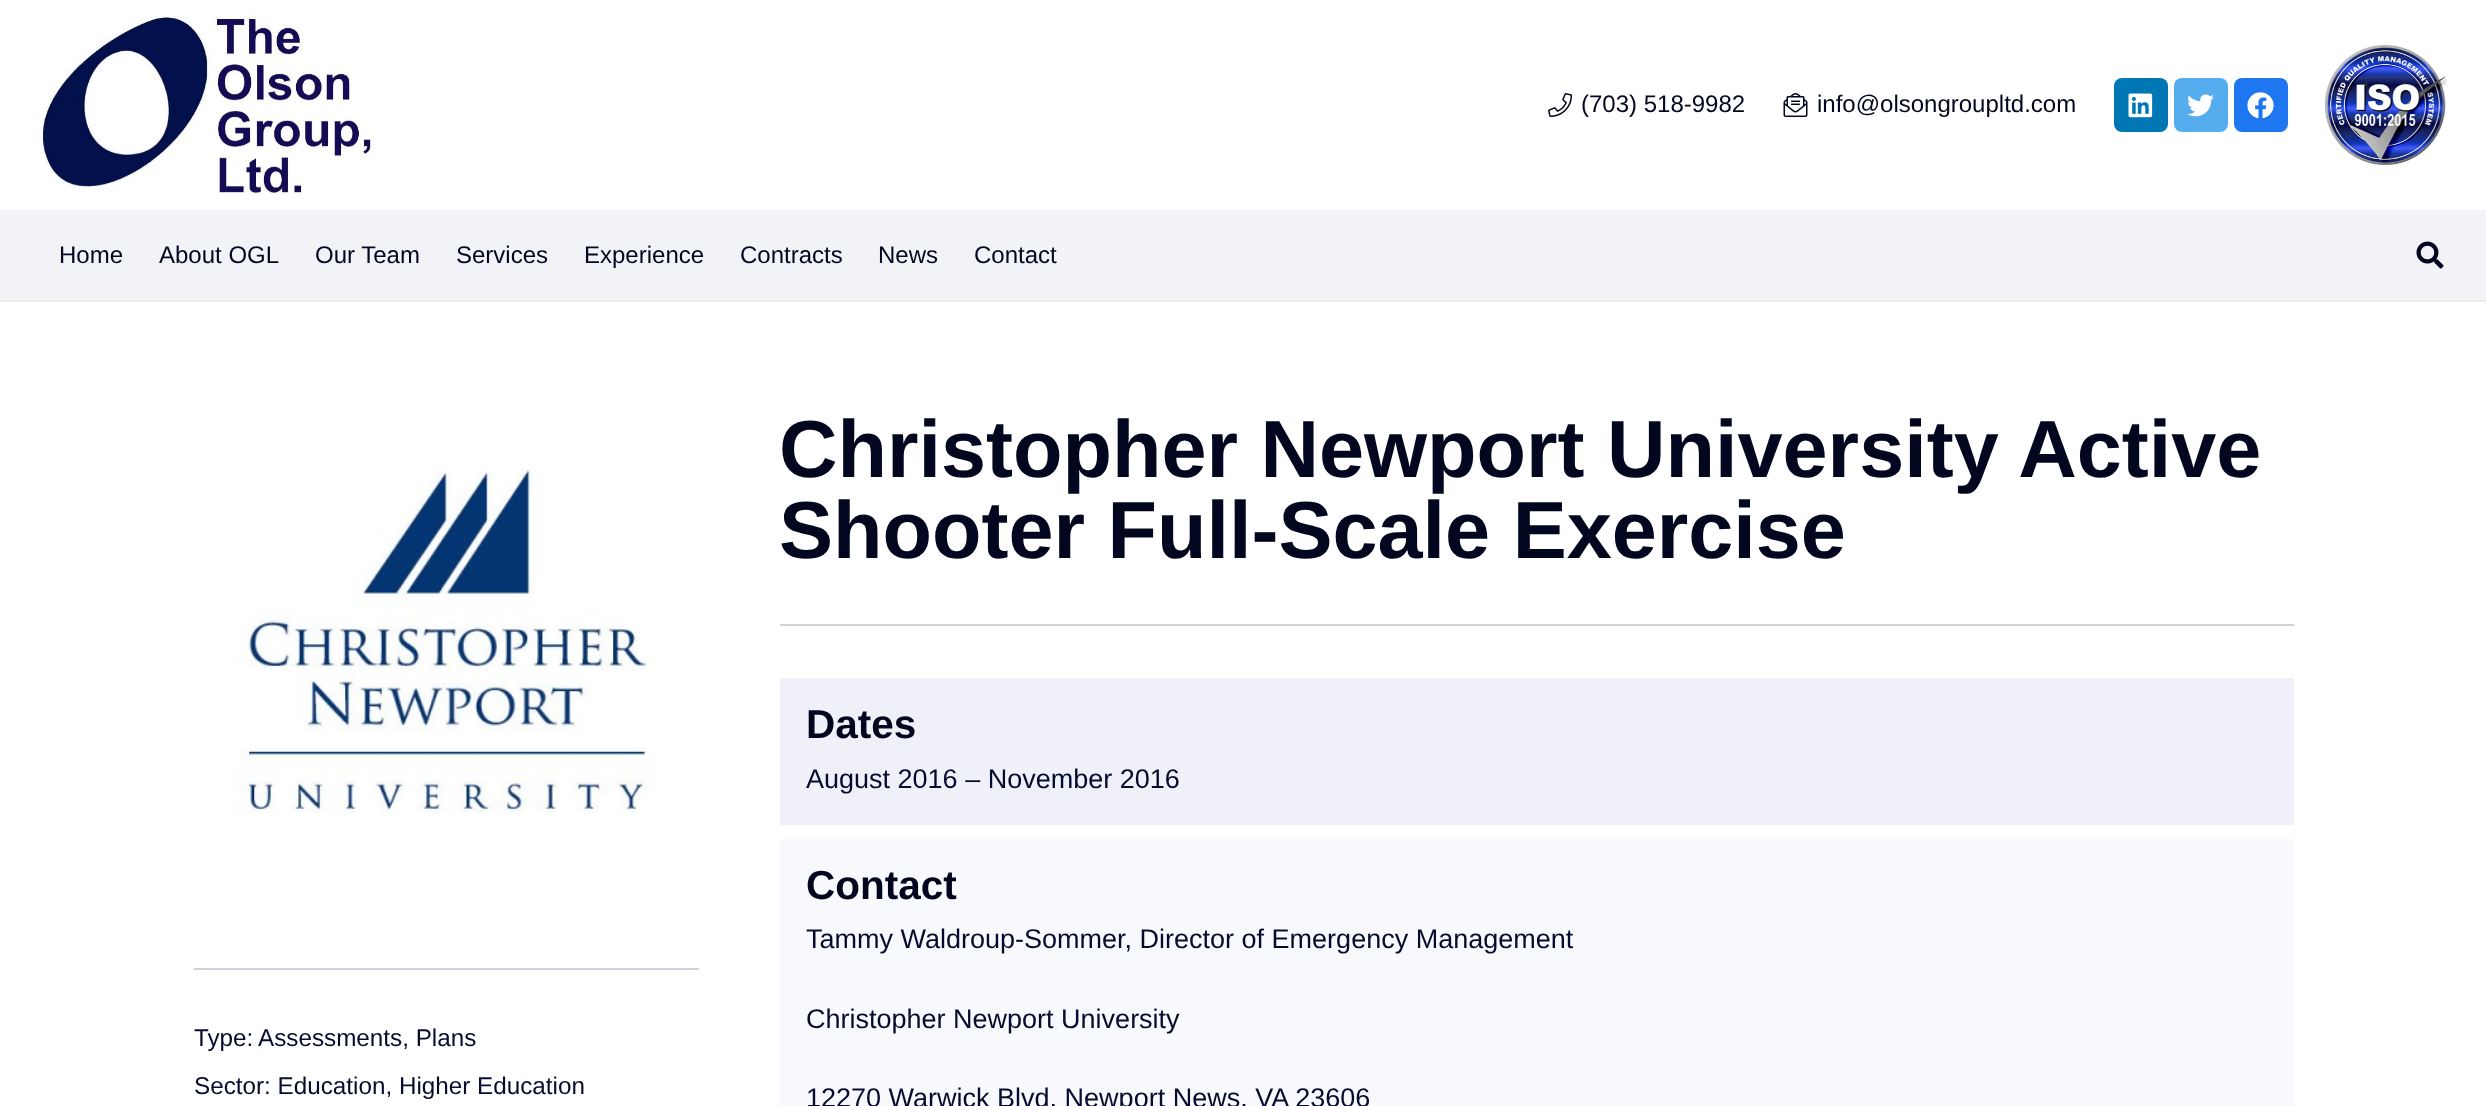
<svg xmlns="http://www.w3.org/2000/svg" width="2486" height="1106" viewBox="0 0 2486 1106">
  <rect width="100%" height="100%" fill="#ffffff"/>
  <image x="41" y="15" width="331" height="180" href="img1.png"/>
  <image x="1548" y="93" width="25" height="24" href="img2.png"/>
  <text x="1581" y="112" font-family="Liberation Sans" font-size="24" fill="#02071f">(703) 518-9982</text>
  <image x="1783" y="93" width="25" height="24" href="img3.png"/>
  <text x="1817" y="112" font-family="Liberation Sans" font-size="24" fill="#02071f">info@olsongroupltd.com</text>
  <rect x="2114" y="78" width="54" height="54" rx="8" fill="#0077b5"/>
  <image x="2128" y="93" width="25" height="25" href="img4.png"/>
  <rect x="2174" y="78" width="54" height="54" rx="8" fill="#55acee"/>
  <image x="2187" y="94" width="27" height="23" href="img5.png"/>
  <rect x="2234" y="78" width="54" height="54" rx="8" fill="#1e77f0"/>
  <image x="2247" y="92" width="27" height="27" href="img6.png"/>
  <image x="2325" y="45" width="122" height="120" href="img7.png"/>
  <rect x="0" y="300" width="2486" height="2" fill="#ebebeb"/>
  <rect x="0" y="210" width="2486" height="90" fill="#f2f3f7"/>
  <text x="59" y="263" font-family="Liberation Sans" font-size="24" fill="#02071f">Home</text>
  <text x="159" y="263" font-family="Liberation Sans" font-size="24" fill="#02071f">About OGL</text>
  <text x="315" y="263" font-family="Liberation Sans" font-size="24" fill="#02071f">Our Team</text>
  <text x="456" y="263" font-family="Liberation Sans" font-size="24" fill="#02071f">Services</text>
  <text x="584" y="263" font-family="Liberation Sans" font-size="24" fill="#02071f">Experience</text>
  <text x="740" y="263" font-family="Liberation Sans" font-size="24" fill="#02071f">Contracts</text>
  <text x="878" y="263" font-family="Liberation Sans" font-size="24" fill="#02071f">News</text>
  <text x="974" y="263" font-family="Liberation Sans" font-size="24" fill="#02071f">Contact</text>
  <image x="2416" y="241" width="28" height="28" href="img8.png"/>
  <image x="234" y="467" width="424" height="346" href="img9.png"/>
  <rect x="194" y="968" width="505" height="2" fill="#d0d1d9"/>
  <text x="194" y="1046" font-family="Liberation Sans" font-size="24.25" fill="#050c2e">Type:</text>
  <text x="258" y="1046" font-family="Liberation Sans" font-size="24.25" fill="#050c2e">Assessments, Plans</text>
  <text x="194" y="1094" font-family="Liberation Sans" font-size="24.25" fill="#050c2e">Sector: Education, Higher Education</text>
  <text x="779" y="477" font-family="Liberation Sans" font-size="81" font-weight="bold" fill="#02071f">Christopher Newport University Active</text>
  <text x="779" y="558" font-family="Liberation Sans" font-size="81" font-weight="bold" fill="#02071f">Shooter Full-Scale Exercise</text>
  <rect x="780" y="624" width="1514" height="2" fill="#d0d1d9"/>
  <rect x="780" y="678" width="1514" height="147" fill="#f0f1f8"/>
  <text x="806" y="738" font-family="Liberation Sans" font-size="40.5" font-weight="bold" fill="#02071f">Dates</text>
  <text x="806" y="788" font-family="Liberation Sans" font-size="27" fill="#050c2e">August 2016 – November 2016</text>
  <rect x="780" y="839" width="1514" height="267" fill="#f8f9fc"/>
  <text x="806" y="899" font-family="Liberation Sans" font-size="40.5" font-weight="bold" fill="#02071f">Contact</text>
  <text x="806" y="948" font-family="Liberation Sans" font-size="27" fill="#050c2e">Tammy Waldroup-Sommer, Director of Emergency Management</text>
  <text x="806" y="1028" font-family="Liberation Sans" font-size="27" fill="#050c2e">Christopher Newport University</text>
  <text x="806" y="1107" font-family="Liberation Sans" font-size="27" fill="#050c2e">12270 Warwick Blvd, Newport News, VA 23606</text>
</svg>
